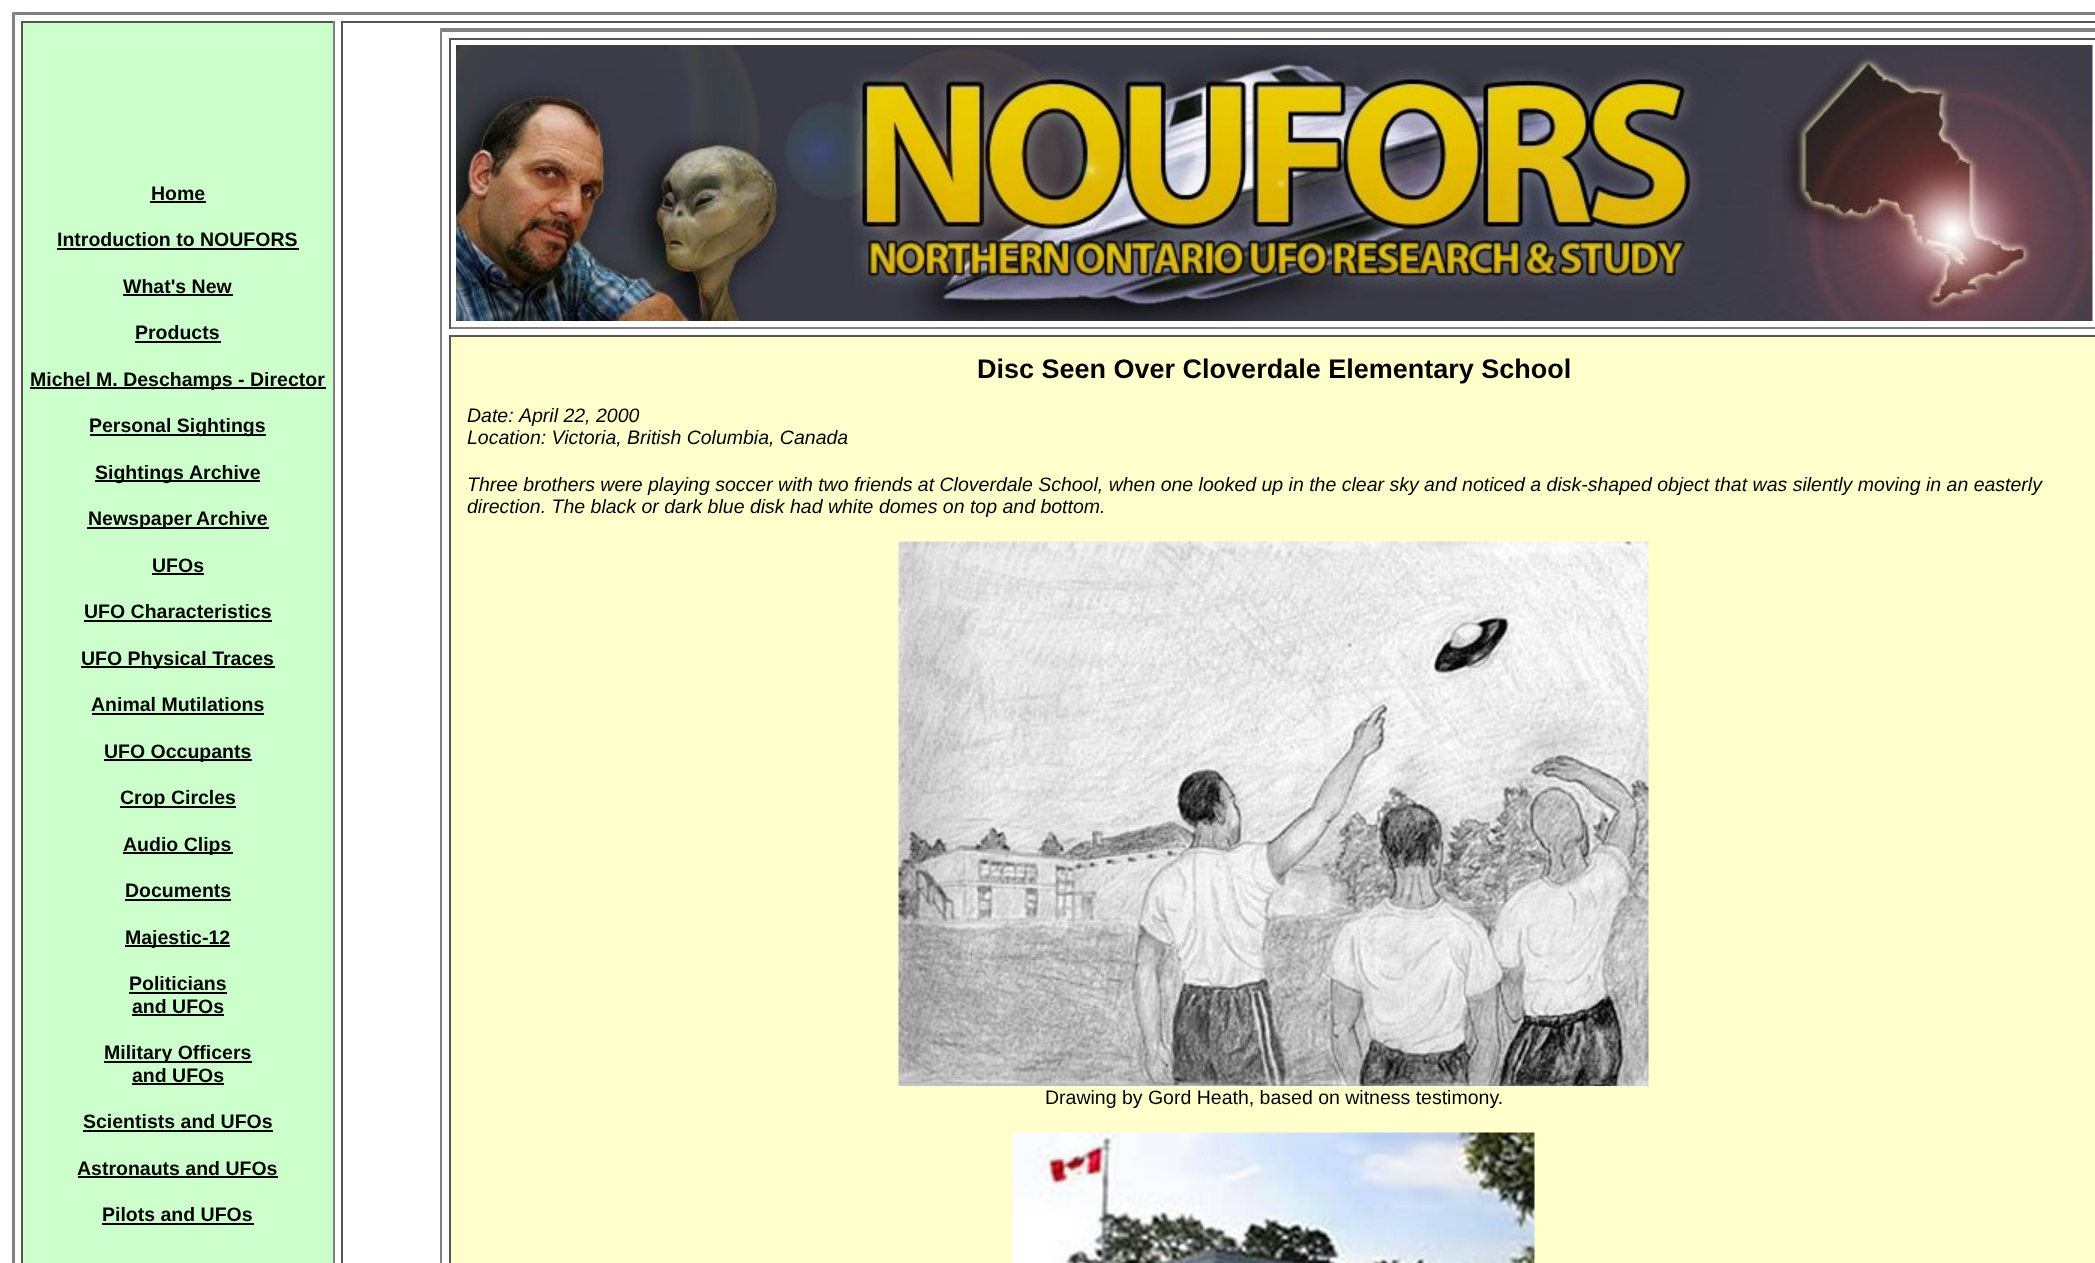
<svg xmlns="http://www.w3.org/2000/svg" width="2095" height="1263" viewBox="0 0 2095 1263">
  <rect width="100%" height="100%" fill="#ffffff"/>
  <path d="M12 12H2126L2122 15H15Z" fill="#808080"/>
  <path d="M12 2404V12L15 15V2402Z" fill="#808080"/>
  <rect x="23" y="23" width="310" height="1240" fill="#ccffcc"/>
  <rect x="21" y="21" width="314" height="2" fill="#555555"/>
  <rect x="333" y="21" width="2" height="1242" fill="#808080"/>
  <rect x="21" y="21" width="2" height="1242" fill="#555555"/>
  <text x="151" y="200" font-family="Liberation Sans" font-size="19.5" font-weight="bold" fill="#000000">Home</text>
  <rect x="150" y="201" width="56" height="2" fill="#000000"/>
  <text x="57" y="246" font-family="Liberation Sans" font-size="19.5" font-weight="bold" fill="#000000">Introduction to NOUFORS</text>
  <rect x="57" y="248" width="242" height="2" fill="#000000"/>
  <text x="123" y="293" font-family="Liberation Sans" font-size="19.5" font-weight="bold" fill="#000000">What's New</text>
  <rect x="123" y="294" width="110" height="2" fill="#000000"/>
  <text x="135" y="339" font-family="Liberation Sans" font-size="19.5" font-weight="bold" fill="#000000">Products</text>
  <rect x="135" y="341" width="86" height="2" fill="#000000"/>
  <rect x="30" y="387" width="296" height="2" fill="#000000"/>
  <text x="30" y="386" font-family="Liberation Sans" font-size="19.5" font-weight="bold" fill="#000000">Michel M. Deschamps - Director</text>
  <rect x="90" y="434" width="176" height="2" fill="#000000"/>
  <text x="89" y="432" font-family="Liberation Sans" font-size="19.5" font-weight="bold" fill="#000000">Personal Sightings</text>
  <rect x="95" y="480" width="165" height="2" fill="#000000"/>
  <text x="95" y="479" font-family="Liberation Sans" font-size="19.5" font-weight="bold" fill="#000000">Sightings</text>
  <text x="189" y="479" font-family="Liberation Sans" font-size="19.5" font-weight="bold" fill="#000000">Archive</text>
  <rect x="87" y="527" width="182" height="2" fill="#000000"/>
  <text x="88" y="525" font-family="Liberation Sans" font-size="19.5" font-weight="bold" fill="#000000">Newspaper</text>
  <text x="196" y="525" font-family="Liberation Sans" font-size="19.5" font-weight="bold" fill="#000000">Archive</text>
  <text x="152" y="572" font-family="Liberation Sans" font-size="19.5" font-weight="bold" fill="#000000">UFOs</text>
  <rect x="152" y="573" width="52" height="2" fill="#000000"/>
  <text x="84" y="618" font-family="Liberation Sans" font-size="19.5" font-weight="bold" fill="#000000">UFO Characteristics</text>
  <rect x="84" y="620" width="188" height="2" fill="#000000"/>
  <rect x="81" y="666" width="194" height="2" fill="#000000"/>
  <text x="81" y="665" font-family="Liberation Sans" font-size="19.5" font-weight="bold" fill="#000000">UFO Physical Traces</text>
  <text x="91" y="711" font-family="Liberation Sans" font-size="19.5" font-weight="bold" fill="#000000">Animal Mutilations</text>
  <rect x="92" y="713" width="172" height="2" fill="#000000"/>
  <rect x="104" y="759" width="148" height="2" fill="#000000"/>
  <text x="104" y="758" font-family="Liberation Sans" font-size="19.5" font-weight="bold" fill="#000000">UFO Occupants</text>
  <rect x="120" y="806" width="116" height="2" fill="#000000"/>
  <text x="120" y="804" font-family="Liberation Sans" font-size="19.5" font-weight="bold" fill="#000000">Crop Circles</text>
  <rect x="123" y="852" width="110" height="2" fill="#000000"/>
  <text x="123" y="851" font-family="Liberation Sans" font-size="19.5" font-weight="bold" fill="#000000">Audio Clips</text>
  <text x="125" y="897" font-family="Liberation Sans" font-size="19.5" font-weight="bold" fill="#000000">Documents</text>
  <rect x="125" y="899" width="106" height="2" fill="#000000"/>
  <rect x="125" y="945" width="105" height="2" fill="#000000"/>
  <text x="125" y="944" font-family="Liberation Sans" font-size="19.5" font-weight="bold" fill="#000000">Majestic-12</text>
  <text x="129" y="990" font-family="Liberation Sans" font-size="19.5" font-weight="bold" fill="#000000">Politicians</text>
  <rect x="129" y="992" width="98" height="2" fill="#000000"/>
  <text x="132" y="1013" font-family="Liberation Sans" font-size="19.5" font-weight="bold" fill="#000000">and UFOs</text>
  <rect x="132" y="1014" width="92" height="2" fill="#000000"/>
  <rect x="104" y="1061" width="148" height="2" fill="#000000"/>
  <text x="104" y="1059" font-family="Liberation Sans" font-size="19.5" font-weight="bold" fill="#000000">Military Officers</text>
  <text x="132" y="1082" font-family="Liberation Sans" font-size="19.5" font-weight="bold" fill="#000000">and UFOs</text>
  <rect x="132" y="1083" width="92" height="2" fill="#000000"/>
  <text x="83" y="1128" font-family="Liberation Sans" font-size="19.5" font-weight="bold" fill="#000000">Scientists and UFOs</text>
  <rect x="83" y="1130" width="190" height="2" fill="#000000"/>
  <text x="77" y="1175" font-family="Liberation Sans" font-size="19.5" font-weight="bold" fill="#000000">Astronauts and UFOs</text>
  <rect x="78" y="1176" width="200" height="2" fill="#000000"/>
  <text x="102" y="1221" font-family="Liberation Sans" font-size="19.5" font-weight="bold" fill="#000000">Pilots and UFOs</text>
  <rect x="102" y="1223" width="152" height="2" fill="#000000"/>
  <rect x="341" y="21" width="1754" height="2" fill="#555555"/>
  <rect x="341" y="21" width="2" height="1242" fill="#555555"/>
  <path d="M440 28H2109L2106 32H442Z" fill="#808080"/>
  <path d="M440 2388V28L442 32V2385Z" fill="#808080"/>
  <rect x="449" y="38" width="1646" height="2" fill="#555555"/>
  <rect x="449" y="327" width="1646" height="2" fill="#808080"/>
  <rect x="449" y="38" width="2" height="291" fill="#555555"/>
  <image x="456" y="45" width="1637" height="276" href="img1.png"/>
  <rect x="451" y="337" width="1644" height="926" fill="#ffffcc"/>
  <rect x="449" y="335" width="1646" height="2" fill="#555555"/>
  <rect x="449" y="335" width="2" height="928" fill="#555555"/>
  <text x="977" y="378" font-family="Liberation Sans" font-size="27" font-weight="bold" fill="#000000">Disc Seen Over Cloverdale Elementary School</text>
  <text x="467" y="422" font-family="Liberation Sans" font-size="19.5" font-style="italic" fill="#000000">Date:</text>
  <text x="519" y="422" font-family="Liberation Sans" font-size="19.5" font-style="italic" fill="#000000">April 22, 2000</text>
  <text x="467" y="444" font-family="Liberation Sans" font-size="19.5" font-style="italic" fill="#000000">Location: Victoria, British Columbia, Canada</text>
  <text x="467" y="491" font-family="Liberation Sans" font-size="19.5" font-style="italic" fill="#000000">Three brothers were playing soccer with two friends at Cloverdale School, when one looked up in the clear sky and noticed a disk-shaped object that was silently moving in an easterly</text>
  <text x="467" y="513" font-family="Liberation Sans" font-size="19.5" font-style="italic" fill="#000000">direction. The black or dark blue disk had white domes on top and bottom.</text>
  <image x="898" y="541" width="751" height="545" href="img2.png"/>
  <text x="1045" y="1104" font-family="Liberation Sans" font-size="19.5" fill="#000000">Drawing by Gord Heath, based on witness testimony.</text>
  <image x="1012" y="1132" width="523" height="131" href="img3.png"/>
</svg>
